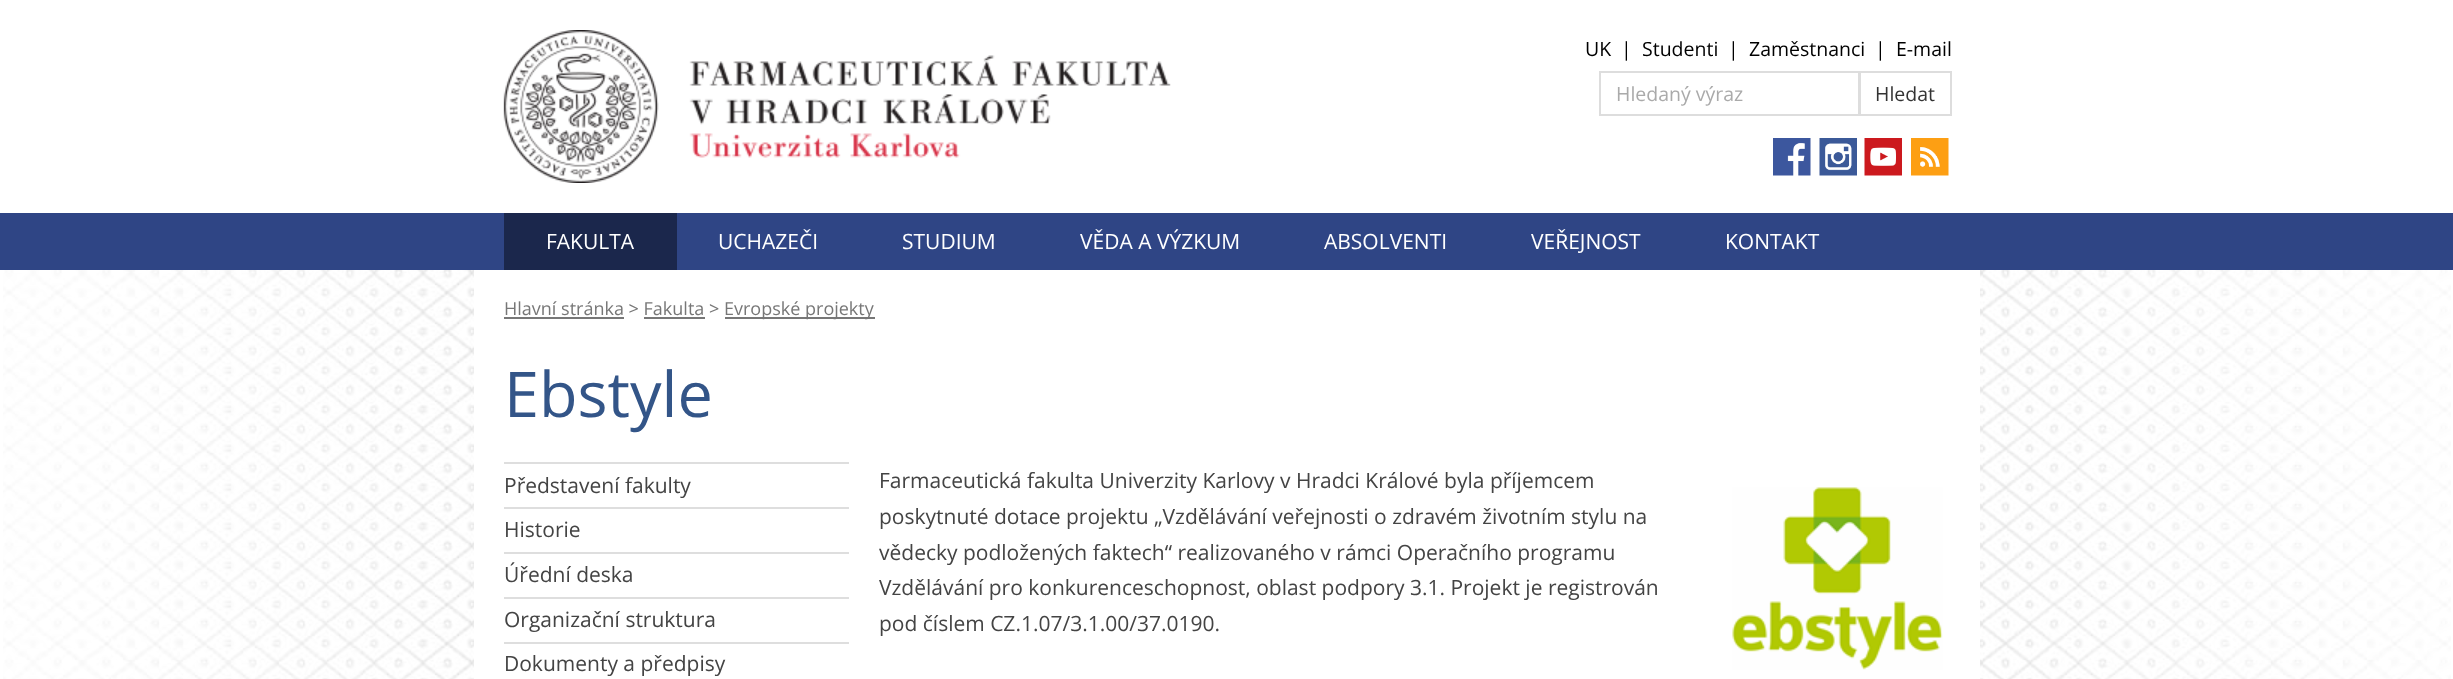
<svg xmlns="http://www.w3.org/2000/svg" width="2453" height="679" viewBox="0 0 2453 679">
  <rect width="100%" height="100%" fill="#ffffff"/>
  <image x="3" y="270" width="2448" height="409" href="img1.png"/>
  <image x="503" y="30" width="668" height="153" href="img2.png"/>
  <text x="1585" y="56" font-family="Open Sans" font-size="19.5" fill="#000000">UK</text>
  <text x="1621" y="56" font-family="Open Sans" font-size="19.5" fill="#000000">|</text>
  <text x="1642" y="56" font-family="Open Sans" font-size="19.5" fill="#000000">Studenti</text>
  <text x="1728" y="56" font-family="Open Sans" font-size="19.5" fill="#000000">|</text>
  <text x="1749" y="56" font-family="Open Sans" font-size="19.5" fill="#000000">Zaměstnanci</text>
  <text x="1875" y="56" font-family="Open Sans" font-size="19.5" fill="#000000">|</text>
  <text x="1896" y="56" font-family="Open Sans" font-size="19.5" fill="#000000">E-mail</text>
  <rect x="1600" y="72" width="259" height="43" fill="none" stroke="#dddddd" stroke-width="2"/>
  <text x="1616" y="101" font-family="Open Sans" font-size="19.5" fill="#aaaaaa">Hledaný výraz</text>
  <rect x="1860" y="72" width="91" height="43" fill="none" stroke="#dddddd" stroke-width="2"/>
  <text x="1875" y="101" font-family="Open Sans" font-size="19.5" fill="#333333">Hledat</text>
  <image x="1773" y="138" width="38" height="38" href="img3.png"/>
  <image x="1819" y="138" width="38" height="38" href="img4.png"/>
  <image x="1864" y="138" width="38" height="38" href="img5.png"/>
  <image x="1911" y="138" width="38" height="38" href="img6.png"/>
  <rect x="0" y="213" width="2453" height="57" fill="#2f4585"/>
  <rect x="504" y="213" width="173" height="57" fill="#1b274c"/>
  <text x="546" y="249" font-family="Open Sans" font-size="21" fill="#ffffff">FAKULTA</text>
  <text x="718" y="249" font-family="Open Sans" font-size="21" fill="#ffffff">UCHAZEČI</text>
  <text x="902" y="249" font-family="Open Sans" font-size="21" fill="#ffffff">STUDIUM</text>
  <text x="1080" y="249" font-family="Open Sans" font-size="21" fill="#ffffff">VĚDA A VÝZKUM</text>
  <text x="1324" y="249" font-family="Open Sans" font-size="21" fill="#ffffff">ABSOLVENTI</text>
  <text x="1531" y="249" font-family="Open Sans" font-size="21" fill="#ffffff">VEŘEJNOST</text>
  <text x="1725" y="249" font-family="Open Sans" font-size="21" fill="#ffffff">KONTAKT</text>
  <rect x="474" y="270" width="1506" height="409" fill="#ffffff"/>
  <text x="504" y="315" font-family="Open Sans" font-size="18" fill="#777777">Hlavní stránka &gt; Fakulta &gt;</text>
  <rect x="504" y="317" width="120" height="2" fill="#777777"/>
  <rect x="725" y="317" width="150" height="2" fill="#777777"/>
  <text x="724" y="315" font-family="Open Sans" font-size="18" fill="#777777">Evropské projekty</text>
  <rect x="644" y="317" width="61" height="2" fill="#777777"/>
  <text x="504" y="417" font-family="Open Sans" font-size="63" fill="#335588">Ebstyle</text>
  <rect x="504" y="462" width="345" height="2" fill="#dedede"/>
  <rect x="504" y="507" width="345" height="2" fill="#dedede"/>
  <text x="504" y="493" font-family="Open Sans" font-size="21" fill="#444444">Představení fakulty</text>
  <rect x="504" y="552" width="345" height="2" fill="#dedede"/>
  <text x="504" y="537" font-family="Open Sans" font-size="21" fill="#444444">Historie</text>
  <rect x="504" y="597" width="345" height="2" fill="#dedede"/>
  <text x="504" y="582" font-family="Open Sans" font-size="21" fill="#444444">Úřední deska</text>
  <rect x="504" y="642" width="345" height="2" fill="#dedede"/>
  <text x="504" y="627" font-family="Open Sans" font-size="21" fill="#444444">Organizační struktura</text>
  <text x="504" y="671" font-family="Open Sans" font-size="21" fill="#444444">Dokumenty a předpisy</text>
  <text x="879" y="488" font-family="Open Sans" font-size="21" fill="#444444">Farmaceutická fakulta Univerzity Karlovy v Hradci Králové byla příjemcem</text>
  <text x="879" y="524" font-family="Open Sans" font-size="21" fill="#444444">poskytnuté dotace projektu „Vzdělávání veřejnosti o zdravém životním stylu na</text>
  <image x="1732" y="487" width="211" height="183" href="img7.png"/>
  <text x="879" y="560" font-family="Open Sans" font-size="21" fill="#444444">vědecky podložených faktech“ realizovaného v rámci Operačního programu</text>
  <text x="879" y="595" font-family="Open Sans" font-size="21" fill="#444444">Vzdělávání pro konkurenceschopnost, oblast podpory 3.1. Projekt je registrován</text>
  <text x="879" y="631" font-family="Open Sans" font-size="21" fill="#444444">pod číslem CZ.1.07/3.1.00/37.0190.</text>
</svg>
